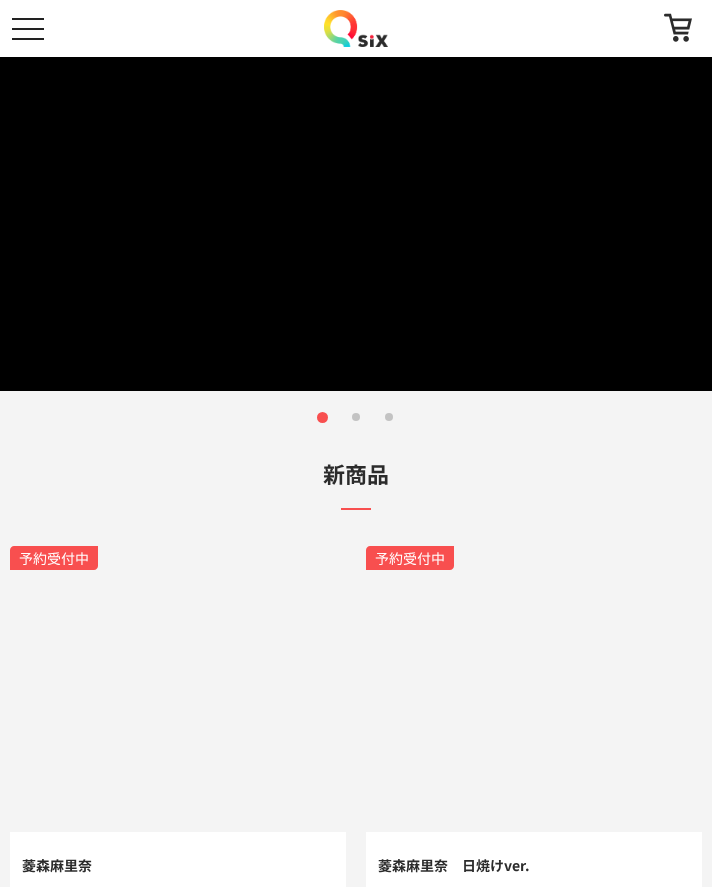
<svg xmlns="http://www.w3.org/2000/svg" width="712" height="887">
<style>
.a{font:bold 22px Noto Sans JP;fill:#2b2b2b}
.b{font:14px Noto Sans JP;fill:#fff}
.c{font:bold 14px Noto Sans JP;fill:#2b2b2b}
</style>
<rect width="100%" height="100%" fill="#f4f4f4"/>
<path fill="#fff" d="M0 0h712v57H0z"/>
<image href="1.png" x="324" y="10" width="64" height="37"/>
<image href="2.png" x="664" y="13" width="28" height="29"/>
<path fill="#222" d="M12 28h32v2H12z"/>
<path fill="#222" d="M12 18h32v2H12z"/>
<path fill="#222" d="M12 38h32v2H12z"/>
<path fill="#000" d="M0 57h712v334H0z"/>
<circle fill="#f84f4f" cx="322.5" cy="417.5" r="5.5"/>
<circle fill="#c3c3c3" cx="356" cy="417" r="4"/>
<circle fill="#c3c3c3" cx="389" cy="417" r="4"/>
<path fill="#f84f4f" d="M341 508h30v2H341z"/>
<path fill="#f84f4f" d="M14 546h84v20c0 2-2 4-4 4h-84v-20c0-2 2-4 4-4z"/>
<path fill="#fff" d="M10 832h336v55H10z"/>
<path fill="#f84f4f" d="M370 546h84v20c0 2-2 4-4 4h-84v-20c0-2 2-4 4-4z"/>
<path fill="#fff" d="M366 832h336v55H366z"/>
<text class="a" x="323" y="483">新商品</text>
<text class="b" x="19" y="564">予約受付中</text>
<text class="c" x="22" y="871">菱森麻里奈</text>
<text class="b" x="375" y="564">予約受付中</text>
<text class="c" x="378" y="871">菱森麻里奈　日焼けver.</text>
</svg>
